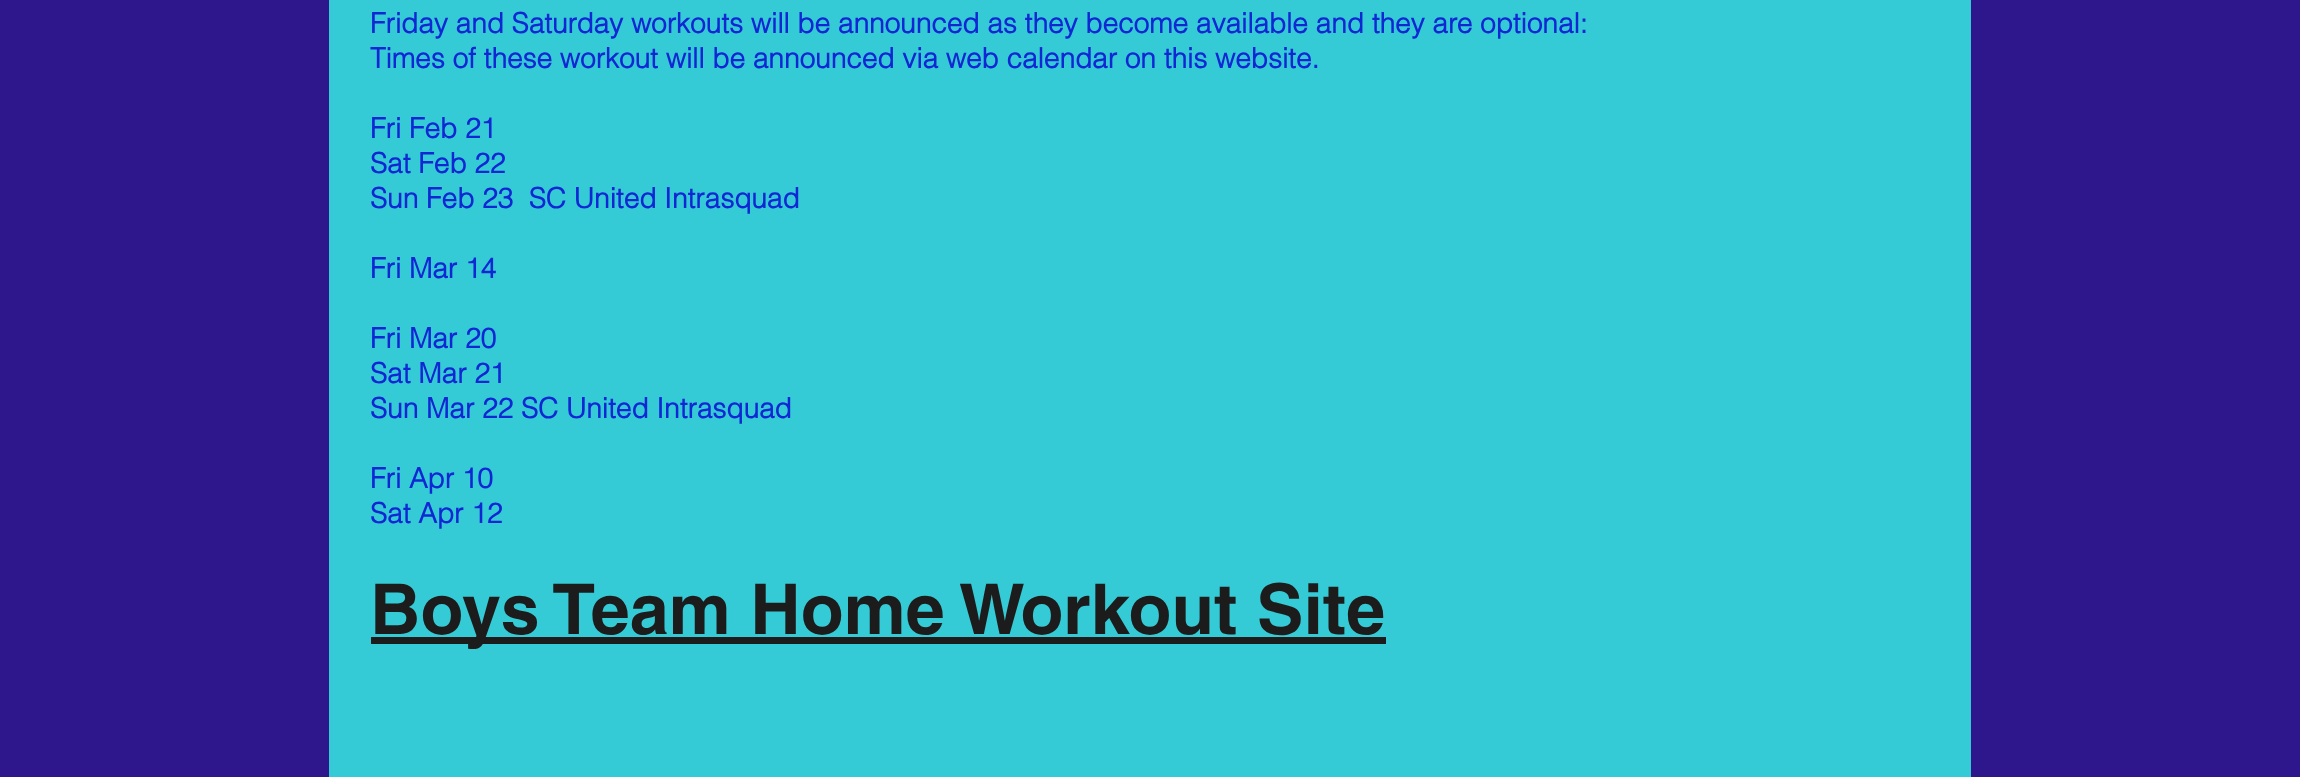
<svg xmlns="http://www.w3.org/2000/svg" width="2300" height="777">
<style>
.a{font:bold 28px helvetica;fill:#1227d4}
.b{font:bold 70px 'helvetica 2';fill:#1c1c1c}
</style>
<rect width="100%" height="100%" fill="#2e168c"/>
<path fill="#35cbd6" d="M329 0h1642v777H329z"/>
<path fill="#1c1c1c" d="M371 637h1015v7H371z"/>
<text class="a" x="370" y="33">Friday and Saturday workouts will be announced as they become available and they are optional:</text>
<text class="a" x="370" y="68">Times of these workout will be announced via web calendar on this website.</text>
<text class="a" x="370" y="138">Fri Feb 21</text>
<text class="a" x="370" y="173">Sat Feb 22</text>
<text class="a" xml:space="preserve" x="370" y="208">Sun Feb 23  SC United Intrasquad</text>
<text class="a" x="370" y="278">Fri Mar 14</text>
<text class="a" x="370" y="348">Fri Mar 20</text>
<text class="a" x="370" y="383">Sat Mar 21</text>
<text class="a" x="370" y="418">Sun Mar 22 SC United Intrasquad</text>
<text class="a" x="370" y="488">Fri Apr 10</text>
<text class="a" x="370" y="523">Sat Apr 12</text>
<text class="b" x="370" y="634">Boys Team Home Workout Site</text>
</svg>
